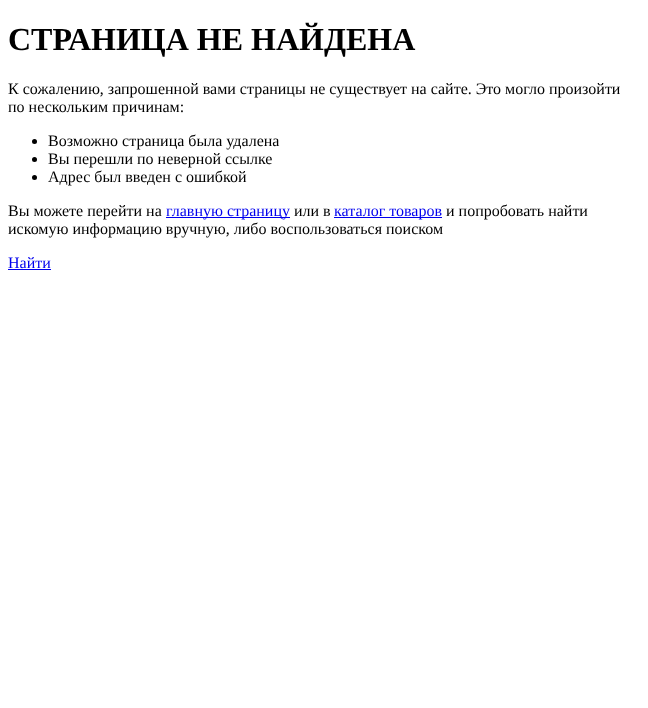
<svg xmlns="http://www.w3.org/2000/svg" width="648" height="708">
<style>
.a{font:bold 32px Liberation Serif;fill:#000}
.b{font:16px Liberation Serif;fill:#000}
.c{font:16px Liberation Serif;fill:#00e}
</style>
<rect width="100%" height="100%" fill="#fff"/>
<circle fill="#000" cx="34.5" cy="141.5" r="2.5"/>
<circle fill="#000" cx="34.5" cy="159.5" r="2.5"/>
<circle fill="#000" cx="34.5" cy="177.5" r="2.5"/>
<path fill="#00e" d="M166 217h124v1H166z"/>
<path fill="#00e" d="M334 217h108v1H334z"/>
<path fill="#00e" d="M8 269h43v1H8z"/>
<text class="a" x="8" y="50">СТРАНИЦА НЕ НАЙДЕНА</text>
<text class="b" x="8" y="94">К сожалению, запрошенной вами страницы не существует на сайте. Это могло произойти</text>
<text class="b" x="8" y="112">по нескольким причинам:</text>
<text class="b" x="48" y="146">Возможно страница была удалена</text>
<text class="b" x="48" y="164">Вы перешли по неверной ссылке</text>
<text class="b" x="48" y="182">Адрес был введен c ошибкой</text>
<text class="b" x="8" y="216">Вы можете перейти на</text>
<text class="c" x="166" y="216">главную страницу</text>
<text class="b" x="294" y="216">или в</text>
<text class="c" x="334" y="216">каталог товаров</text>
<text class="b" x="446" y="216">и попробовать найти</text>
<text class="b" x="8" y="234">искомую информацию вручную, либо воспользоваться поиском</text>
<text class="c" x="8" y="268">Найти</text>
</svg>
